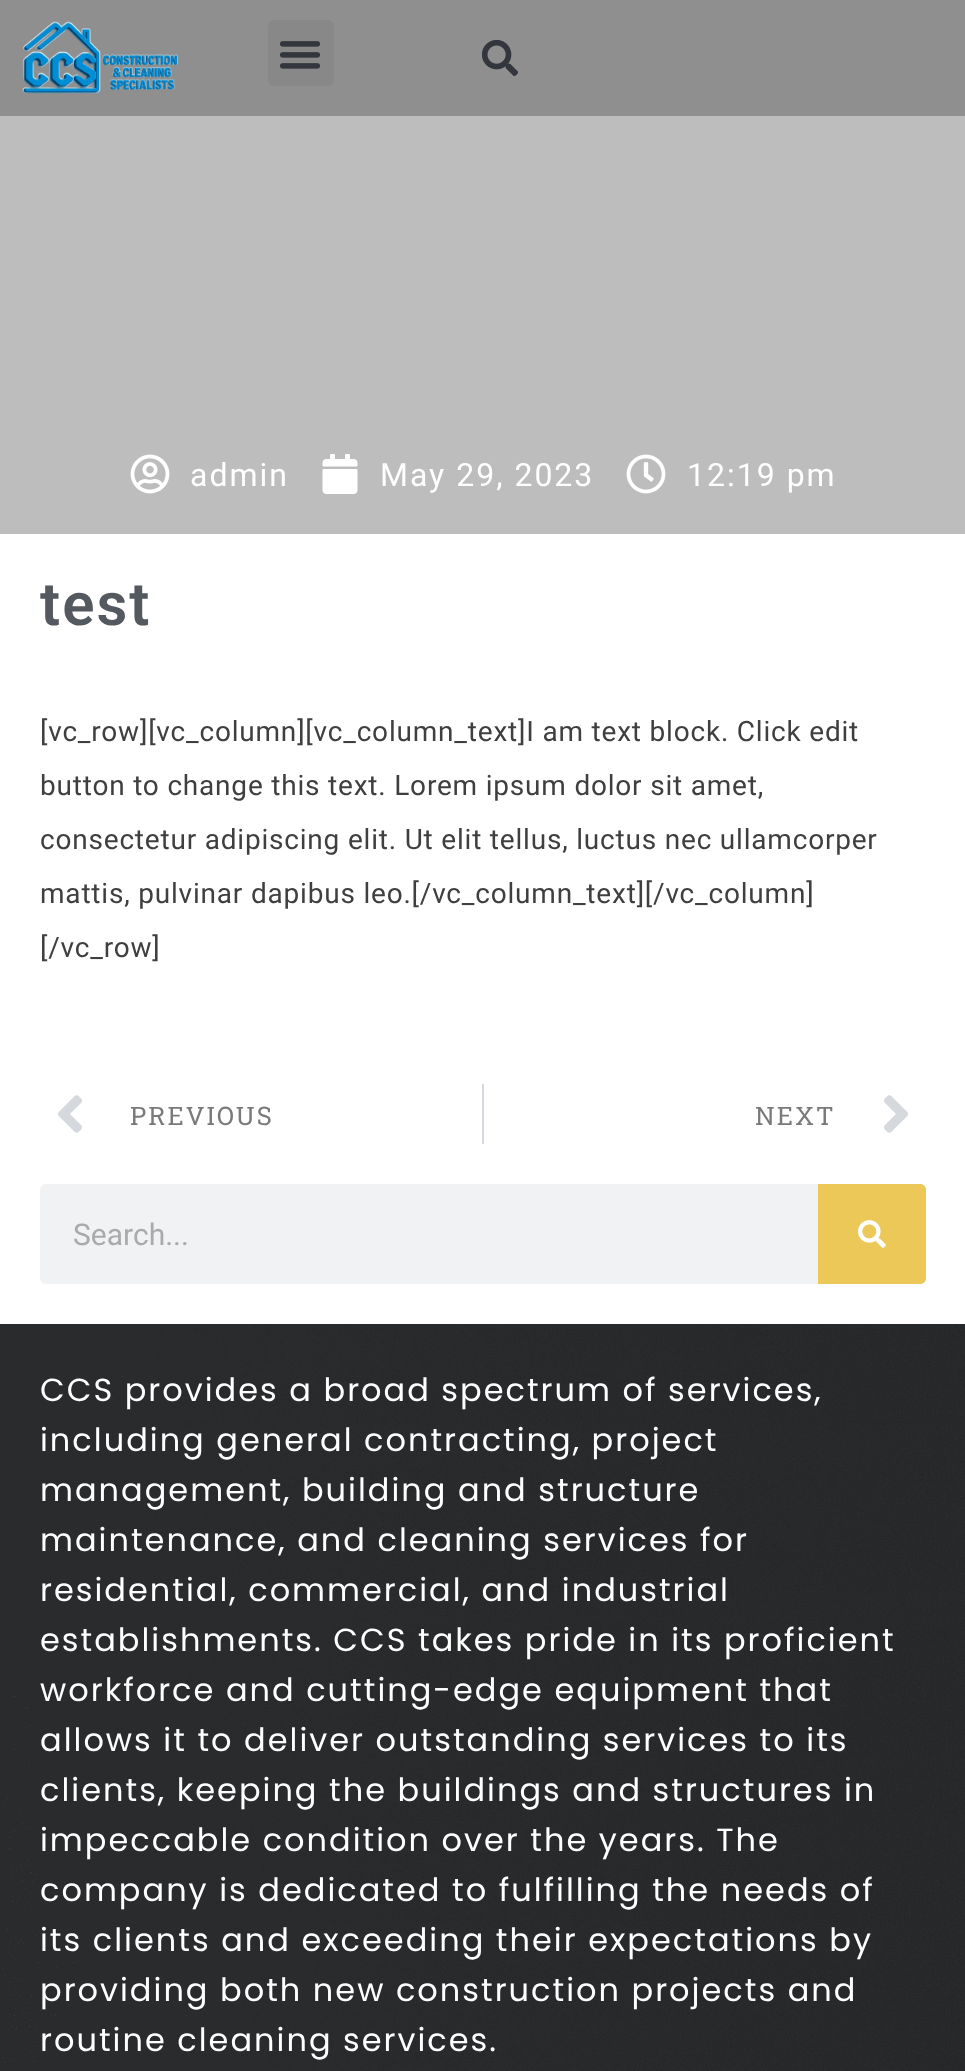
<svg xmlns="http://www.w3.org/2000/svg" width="965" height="2071">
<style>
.a{font:32px Roboto;letter-spacing:2px;fill:#fff}
.b{font:600 60px Roboto;letter-spacing:2px;fill:#54595f}
.c{font:28px Roboto;letter-spacing:0.8px;fill:#3f3f3f}
.d{font:25.5px Roboto Slab;letter-spacing:2px;fill:#7a7a7a}
.e{font:30px Roboto;fill:#aaa}
.f{font:32px Poppins;letter-spacing:2px;fill:#fff}
</style>
<rect width="100%" height="100%" fill="#fff"/>
<path fill="#8f8f8f" d="M0 0h965v116H0z"/>
<image href="1.png" x="22" y="21" width="156" height="73"/>
<rect fill="#888" x="268" y="20" width="66" height="66" rx="6"/>
<image href="2.png" x="279" y="41" width="42" height="28"/>
<image href="3.png" x="482" y="40" width="36" height="36"/>
<path fill="#bdbdbd" d="M0 116h965v418H0z"/>
<image href="4.png" x="130" y="454" width="40" height="40"/>
<image href="5.png" x="322" y="454" width="36" height="40"/>
<image href="6.png" x="626" y="454" width="40" height="40"/>
<image href="7.png" x="58" y="1095" width="24" height="38"/>
<path fill="#d5d8dc" d="M482 1084h2v60H482z"/>
<image href="8.png" x="884" y="1095" width="24" height="38"/>
<rect fill="#f1f2f3" x="40" y="1184" width="886" height="100" rx="6"/>
<path fill="#ebc858" d="M818 1184h102c3.5 0 6 2.5 6 6v88c0 3.5-2.5 6-6 6h-102z"/>
<image href="9.png" x="858" y="1220" width="28" height="28"/>
<image href="10.png" x="0" y="1324" width="965" height="747"/>
<text class="a" x="190" y="486">admin</text>
<text class="a" x="380" y="486">May 29, 2023</text>
<text class="a" x="687" y="486">12:19 pm</text>
<text class="b" x="40" y="625">test</text>
<text class="c" x="40" y="741">[vc_row][vc_column][vc_column_text]I am text block. Click edit</text>
<text class="c" x="40" y="795">button to change this text. Lorem ipsum dolor sit amet,</text>
<text class="c" x="40" y="849">consectetur adipiscing elit. Ut elit tellus, luctus nec ullamcorper</text>
<text class="c" x="40" y="903">mattis, pulvinar dapibus leo.[/vc_column_text][/vc_column]</text>
<text class="c" x="40" y="957">[/vc_row]</text>
<text class="d" x="130" y="1125">PREVIOUS</text>
<text class="d" x="755" y="1125">NEXT</text>
<text class="e" x="73" y="1245">Search...</text>
<text class="f" x="40" y="1401">CCS provides a broad spectrum of services,</text>
<text class="f" x="40" y="1451">including general contracting, project</text>
<text class="f" x="40" y="1501">management, building and structure</text>
<text class="f" x="40" y="1551">maintenance, and cleaning services for</text>
<text class="f" x="40" y="1601">residential, commercial, and industrial</text>
<text class="f" x="40" y="1651">establishments. CCS takes pride in its proficient</text>
<text class="f" x="40" y="1701">workforce and cutting-edge equipment that</text>
<text class="f" x="40" y="1751">allows it to deliver outstanding services to its</text>
<text class="f" x="40" y="1801">clients, keeping the buildings and structures in</text>
<text class="f" x="40" y="1851">impeccable condition over the years. The</text>
<text class="f" x="40" y="1901">company is dedicated to fulfilling the needs of</text>
<text class="f" x="40" y="1951">its clients and exceeding their expectations by</text>
<text class="f" x="40" y="2001">providing both new construction projects and</text>
<text class="f" x="40" y="2051">routine cleaning services.</text>
</svg>
